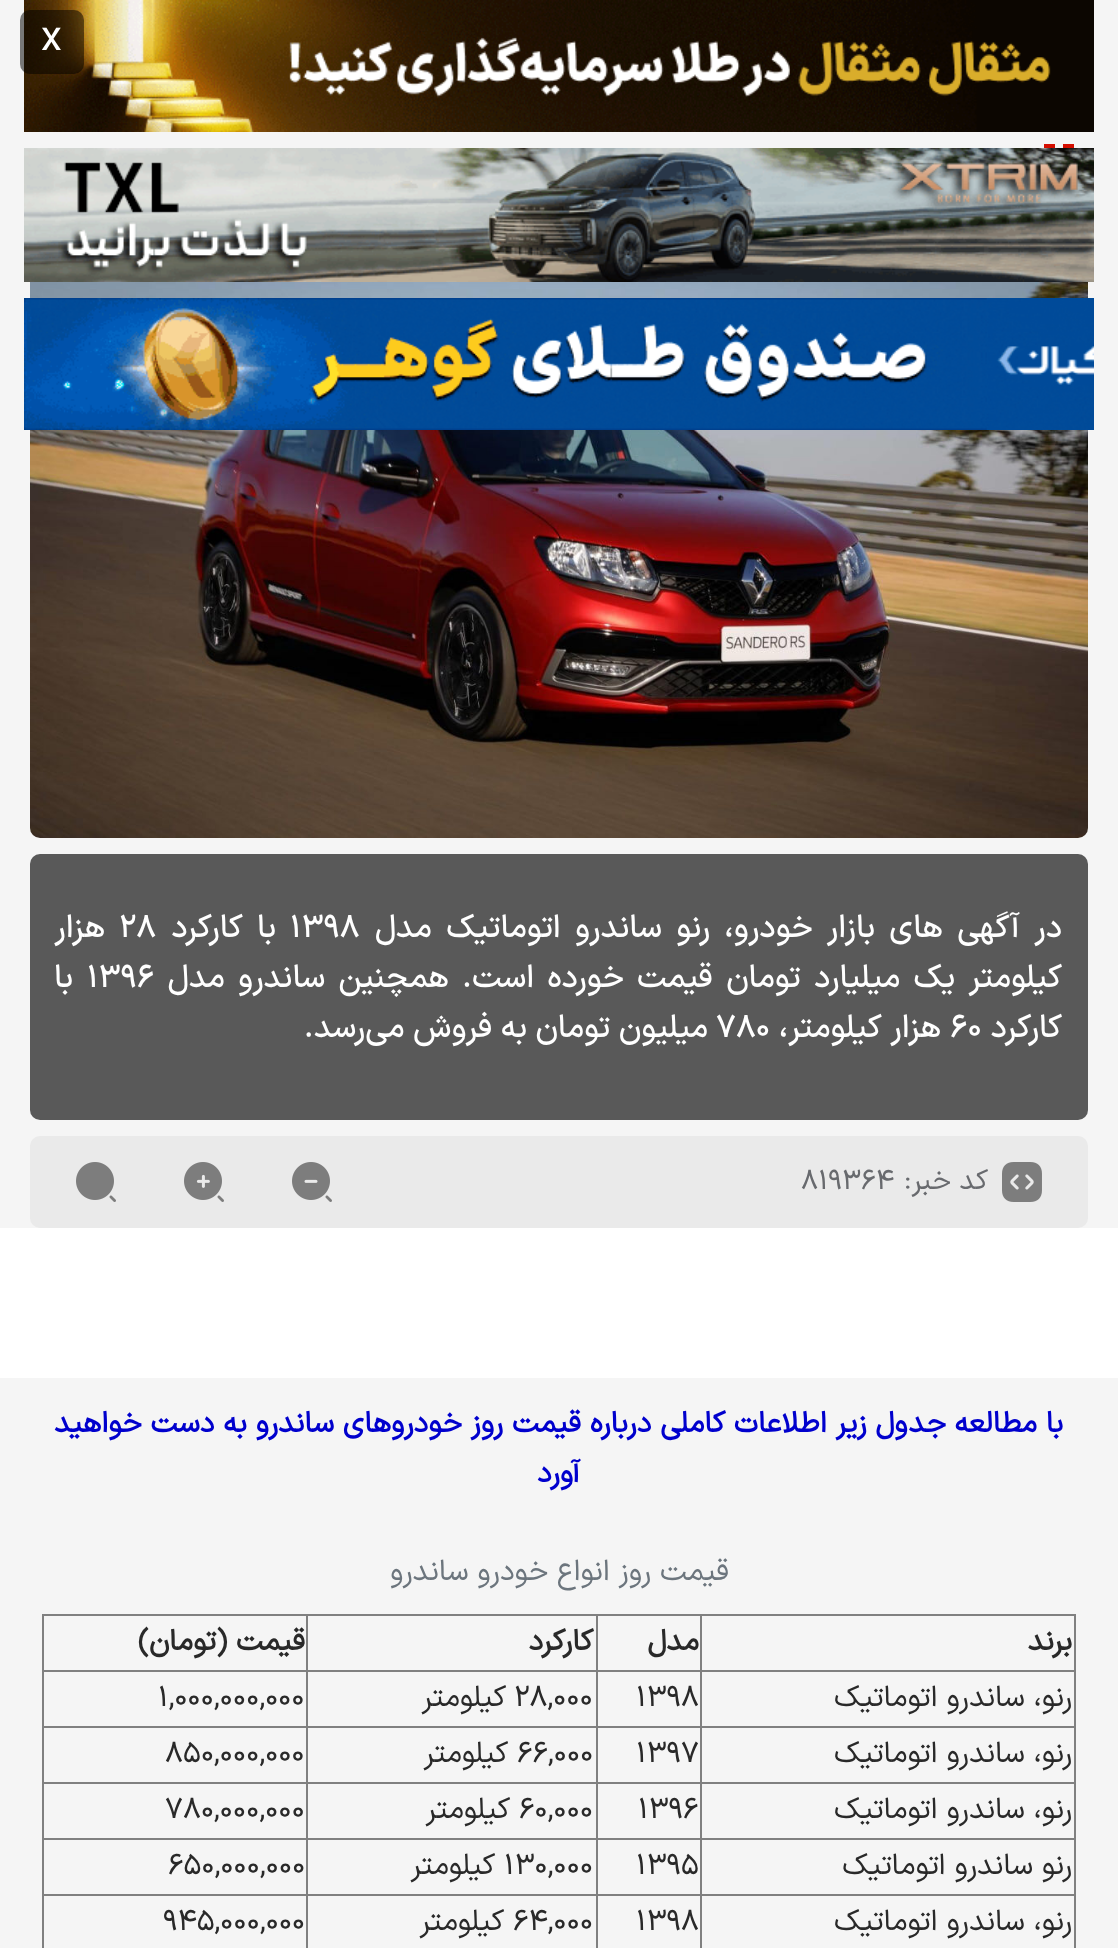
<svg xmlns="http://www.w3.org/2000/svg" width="1118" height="1948">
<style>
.a{font:42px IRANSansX;fill:#fff}
.b{font:500 32px IRANSansX;direction:rtl;fill:#fff}
.c{font:500 32px IRANSansX;fill:#fff}
.d{font:28px IRANSansX;direction:rtl;fill:#686a6e}
.e{font:28px IRANSansX;fill:#686a6e}
.f{font:bold 29.35px IRANSansX;direction:rtl;fill:#0000cd}
.g{font:29.35px IRANSansX;direction:rtl;fill:#6c757d}
.h{font:bold 29.35px IRANSansX;direction:rtl;fill:#292929}
.i{font:29.35px IRANSansX;direction:rtl;fill:#292929}
.j{font:29.35px IRANSansX;fill:#292929}
</style>
<rect width="100%" height="100%" fill="#fff"/>
<path fill="#f5f5f5" d="M0 0h1118v1228H0z"/>
<image href="1.png" x="24" y="0" width="1070" height="132"/>
<path fill="#d40e00" d="M1055 198l-11 6v-60h11zm19-22l-11 5v-37h11z"/>
<image href="2.png" x="24" y="148" width="1070" height="134"/>
<image href="4.png" x="30" y="282" width="1058" height="556"/>
<image href="3.png" x="24" y="298" width="1070" height="132"/>
<rect fill="#00000082" x="20" y="10" width="64" height="64" rx="10"/>
<rect fill="#595959" x="30" y="854" width="1058" height="266" rx="10"/>
<rect fill="#eaeaea" x="30" y="1136" width="1058" height="92" rx="10"/>
<image href="5.png" x="1002" y="1162" width="40" height="40"/>
<image href="6.png" x="292" y="1162" width="40" height="40"/>
<image href="7.png" x="184" y="1162" width="40" height="40"/>
<image href="8.png" x="76" y="1162" width="40" height="40"/>
<path fill="#f5f5f5" d="M0 1378h1118v570H0z"/>
<path fill="#808080" d="M42 1614h1034v2H42z"/>
<path fill="#808080" d="M42 1670h1034v2H42z"/>
<path fill="#808080" d="M1074 1670h2v278H1074z"/>
<path fill="#808080" d="M1074 1614h2v58H1074z"/>
<path fill="#808080" d="M42 1670h2v278H42z"/>
<path fill="#808080" d="M42 1614h2v58H42z"/>
<path fill="#808080" d="M42 1726h1034v2H42z"/>
<path fill="#808080" d="M42 1782h1034v2H42z"/>
<path fill="#808080" d="M42 1838h1034v2H42z"/>
<path fill="#808080" d="M42 1894h1034v2H42z"/>
<path fill="#808080" d="M700 1614h2v334H700z"/>
<path fill="#808080" d="M596 1614h2v334H596z"/>
<path fill="#808080" d="M306 1614h2v334H306z"/>
<text class="a" x="41" y="50">x</text>
<text class="b" x="1062" y="937" word-spacing="5.75">در آگهی های بازار خودرو، رنو ساندرو اتوماتیک مدل</text>
<text class="c" x="290" y="937">۱۳۹۸</text>
<text class="b" x="276" y="937" word-spacing="5.75">با کارکرد</text>
<text class="c" x="119" y="937">۲۸</text>
<text class="b" x="105" y="937">هزار</text>
<text class="b" x="1062" y="987" word-spacing="4.75">کیلومتر یک میلیارد تومان قیمت خورده است. همچنین ساندرو مدل</text>
<text class="c" x="87" y="987">۱۳۹۶</text>
<text class="b" x="73" y="987">با</text>
<text class="b" x="1062" y="1037">کارکرد</text>
<text class="c" x="950" y="1037">۶۰</text>
<text class="b" x="941" y="1037">هزار کیلومتر،</text>
<text class="c" x="716" y="1037">۷۸۰</text>
<text class="b" x="708" y="1037">میلیون تومان به فروش می‌رسد.</text>
<text class="d" x="988" y="1189">کد خبر:</text>
<text class="e" x="801" y="1189">۸۱۹۳۶۴</text>
<text class="f" x="1063" y="1432">با مطالعه جدول زیر اطلاعات کاملی درباره قیمت روز خودروهای ساندرو به دست خواهید</text>
<text class="f" x="580" y="1482">آورد</text>
<text class="g" x="729" y="1580">قیمت روز انواع خودرو ساندرو</text>
<text class="h" x="1072" y="1650">برند</text>
<text class="h" x="699" y="1650">مدل</text>
<text class="h" x="593" y="1650">کارکرد</text>
<text class="h" x="305" y="1650">قیمت (تومان)</text>
<text class="i" x="1072" y="1706">رنو، ساندرو اتوماتیک</text>
<text class="j" x="636" y="1706">۱۳۹۸</text>
<text class="j" x="514" y="1706">۲۸,۰۰۰</text>
<text class="i" x="506" y="1706">کیلومتر</text>
<text class="j" x="158" y="1706">۱,۰۰۰,۰۰۰,۰۰۰</text>
<text class="i" x="1072" y="1762">رنو، ساندرو اتوماتیک</text>
<text class="j" x="636" y="1762">۱۳۹۷</text>
<text class="j" x="517" y="1762">۶۶,۰۰۰</text>
<text class="i" x="508" y="1762">کیلومتر</text>
<text class="j" x="165" y="1762">۸۵۰,۰۰۰,۰۰۰</text>
<text class="i" x="1072" y="1818">رنو، ساندرو اتوماتیک</text>
<text class="j" x="638" y="1818">۱۳۹۶</text>
<text class="j" x="519" y="1818">۶۰,۰۰۰</text>
<text class="i" x="510" y="1818">کیلومتر</text>
<text class="j" x="165" y="1818">۷۸۰,۰۰۰,۰۰۰</text>
<text class="i" x="1072" y="1874">رنو ساندرو اتوماتیک</text>
<text class="j" x="636" y="1874">۱۳۹۵</text>
<text class="j" x="504" y="1874">۱۳۰,۰۰۰</text>
<text class="i" x="495" y="1874">کیلومتر</text>
<text class="j" x="168" y="1874">۶۵۰,۰۰۰,۰۰۰</text>
<text class="i" x="1072" y="1930">رنو، ساندرو اتوماتیک</text>
<text class="j" x="636" y="1930">۱۳۹۸</text>
<text class="j" x="513" y="1930">۶۴,۰۰۰</text>
<text class="i" x="504" y="1930">کیلومتر</text>
<text class="j" x="163" y="1930">۹۴۵,۰۰۰,۰۰۰</text>
</svg>
